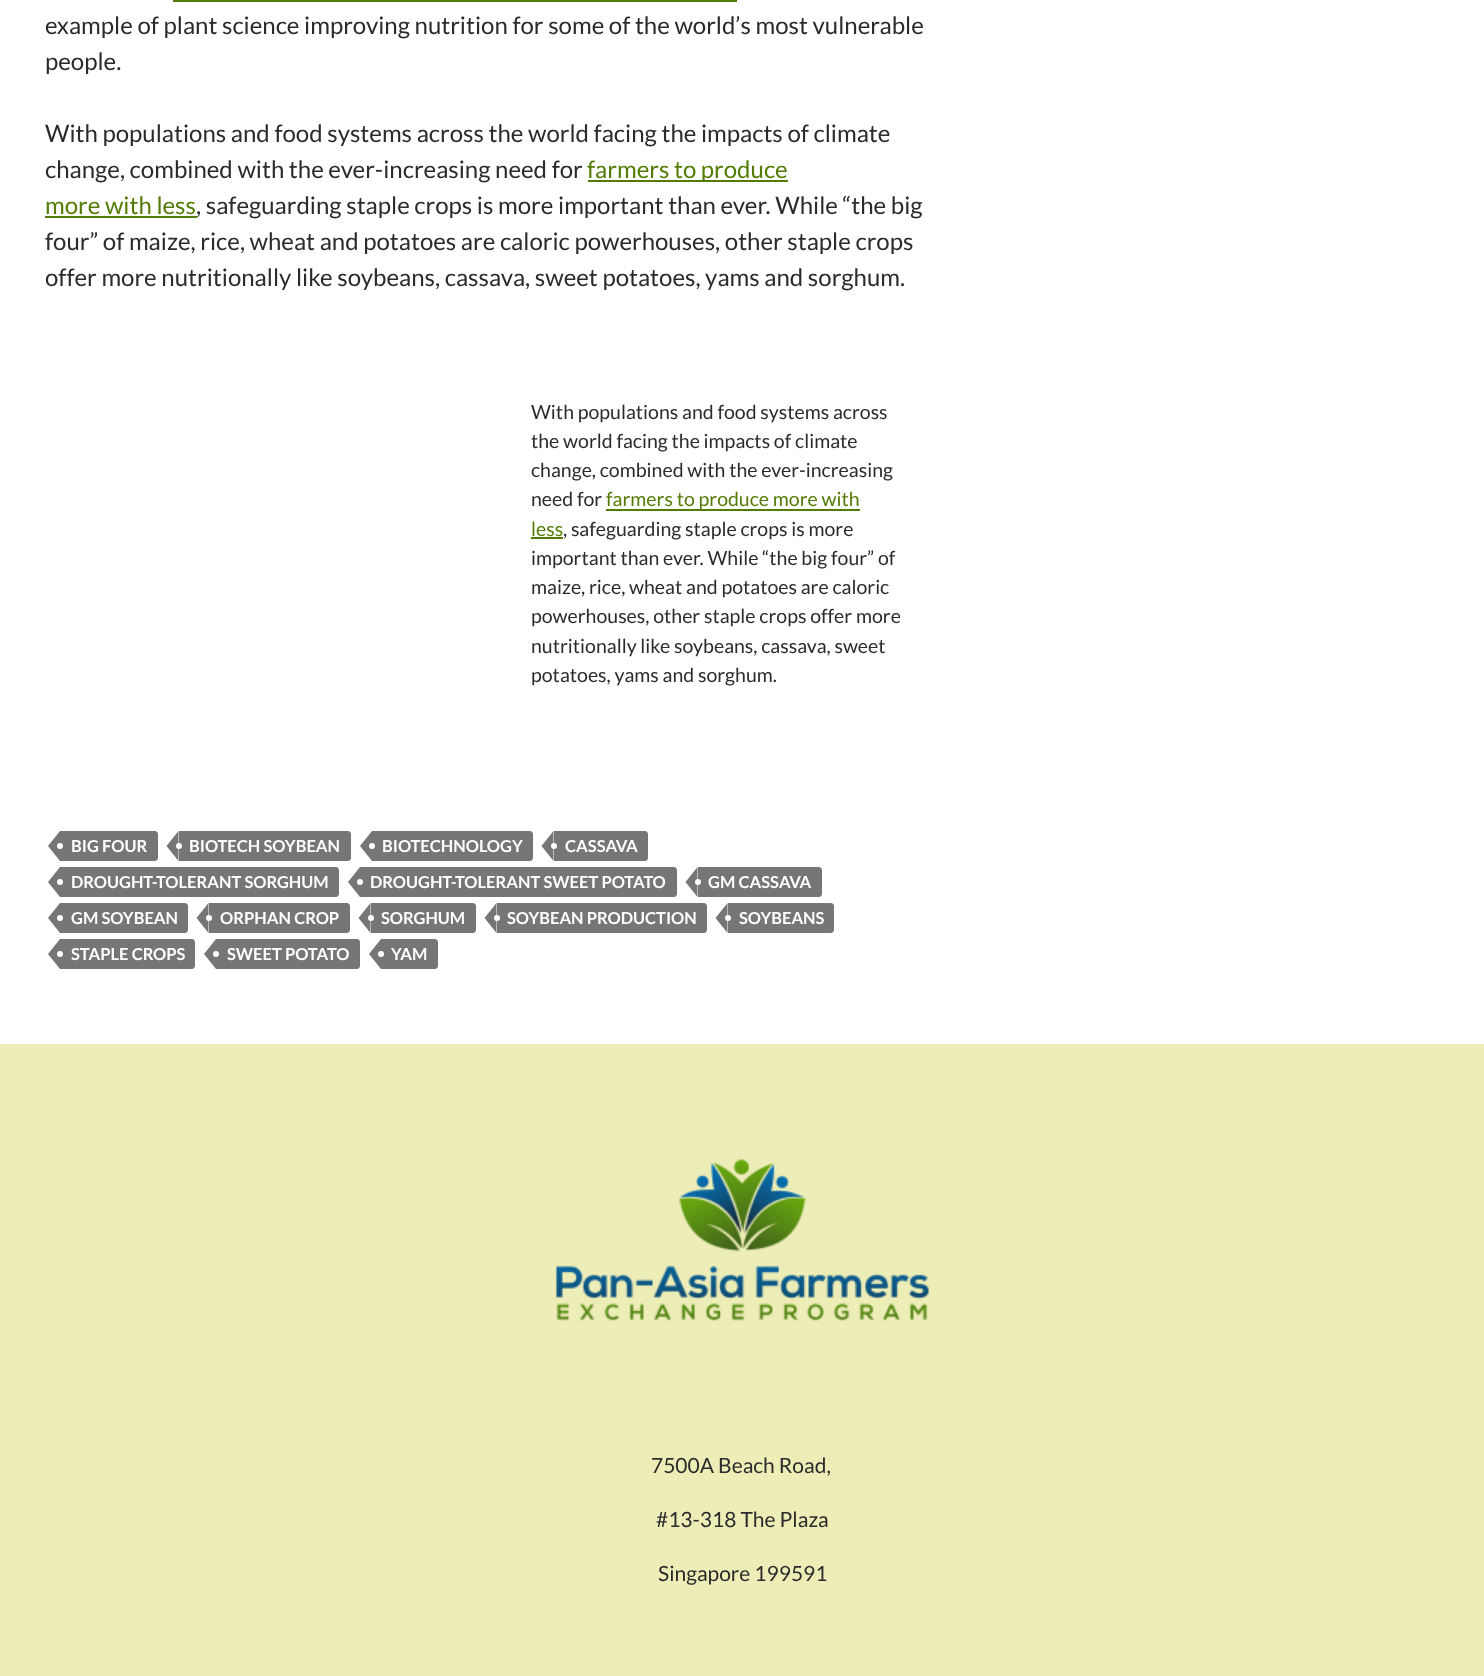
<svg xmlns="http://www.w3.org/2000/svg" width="1484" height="1676">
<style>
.a{font:24px Lato;fill:#2b2b2b}
.b{font:24px Lato;fill:#527c03}
.c{font:19.5px Lato;fill:#2b2b2b}
.d{font:19.5px Lato;fill:#527c03}
.e{font:bold 16.5px Lato;fill:#fff}
.f{font:21px Lato;fill:#2b2b2b}
</style>
<rect width="100%" height="100%" fill="#fff"/>
<path fill="#527c03" d="M173 0h564v2H173z"/>
<path fill="#527c03" d="M588 180h200v2H588z"/>
<path fill="#527c03" d="M45 216h152v2H45z"/>
<path fill="#527c03" d="M606 509h254v2H606z"/>
<path fill="#527c03" d="M531 537h32v2H531z"/>
<path fill="#767676" d="M60 831h95c1.5 0 3 1.5 3 3v24c0 1.5-1.5 3-3 3h-95z"/>
<path fill="#767676" d="M60 831v30l-12-15z"/>
<circle fill="#fff" cx="60" cy="846" r="3"/>
<path fill="#767676" d="M179 831h169c1.5 0 3 1.5 3 3v24c0 1.5-1.5 3-3 3h-169z"/>
<path fill="#767676" d="M178.5 831v30l-12-15z"/>
<circle fill="#fff" cx="179" cy="846" r="3"/>
<path fill="#767676" d="M372 831h158c1.5 0 3 1.5 3 3v24c0 1.5-1.5 3-3 3h-158z"/>
<path fill="#767676" d="M372 831v30l-12-15z"/>
<circle fill="#fff" cx="372" cy="846" r="3"/>
<path fill="#767676" d="M554 831h91c1.5 0 3 1.5 3 3v24c0 1.5-1.5 3-3 3h-91z"/>
<path fill="#767676" d="M553.5 831v30l-12-15z"/>
<circle fill="#fff" cx="554" cy="846" r="3"/>
<path fill="#767676" d="M60 867h276c1.5 0 3 1.5 3 3v24c0 1.5-1.5 3-3 3h-276z"/>
<path fill="#767676" d="M60 867v30l-12-15z"/>
<circle fill="#fff" cx="60" cy="882" r="3"/>
<path fill="#767676" d="M360 867h314c1.5 0 3 1.5 3 3v24c0 1.5-1.5 3-3 3h-314z"/>
<path fill="#767676" d="M360 867v30l-12-15z"/>
<circle fill="#fff" cx="360" cy="882" r="3"/>
<path fill="#767676" d="M698 867h121c1.5 0 3 1.5 3 3v24c0 1.5-1.5 3-3 3h-121z"/>
<path fill="#767676" d="M697.5 867v30l-12-15z"/>
<circle fill="#fff" cx="698" cy="882" r="3"/>
<path fill="#767676" d="M60 903h125c1.5 0 3 1.5 3 3v24c0 1.5-1.5 3-3 3h-125z"/>
<path fill="#767676" d="M60 903v30l-12-15z"/>
<circle fill="#fff" cx="60" cy="918" r="3"/>
<path fill="#767676" d="M209 903h138c1.5 0 3 1.5 3 3v24c0 1.5-1.5 3-3 3h-138z"/>
<path fill="#767676" d="M208.5 903v30l-12-15z"/>
<circle fill="#fff" cx="209" cy="918" r="3"/>
<path fill="#767676" d="M371 903h102c1.5 0 3 1.5 3 3v24c0 1.5-1.5 3-3 3h-102z"/>
<path fill="#767676" d="M370.5 903v30l-12-15z"/>
<circle fill="#fff" cx="371" cy="918" r="3"/>
<path fill="#767676" d="M497 903h207c1.5 0 3 1.5 3 3v24c0 1.5-1.5 3-3 3h-207z"/>
<path fill="#767676" d="M496.5 903v30l-12-15z"/>
<circle fill="#fff" cx="497" cy="918" r="3"/>
<path fill="#767676" d="M728 903h103c1.5 0 3 1.5 3 3v24c0 1.5-1.5 3-3 3h-103z"/>
<path fill="#767676" d="M727.5 903v30l-12-15z"/>
<circle fill="#fff" cx="728" cy="918" r="3"/>
<path fill="#767676" d="M60 939h132c1.5 0 3 1.5 3 3v24c0 1.5-1.5 3-3 3h-132z"/>
<path fill="#767676" d="M60 939v30l-12-15z"/>
<circle fill="#fff" cx="60" cy="954" r="3"/>
<path fill="#767676" d="M216 939h141c1.5 0 3 1.5 3 3v24c0 1.5-1.5 3-3 3h-141z"/>
<path fill="#767676" d="M216 939v30l-12-15z"/>
<circle fill="#fff" cx="216" cy="954" r="3"/>
<path fill="#767676" d="M381 939h54c1.5 0 3 1.5 3 3v24c0 1.5-1.5 3-3 3h-54z"/>
<path fill="#767676" d="M381 939v30l-12-15z"/>
<circle fill="#fff" cx="381" cy="954" r="3"/>
<path fill="#ededb8" d="M0 1044h1484v632H0z"/>
<image href="1.png" x="555" y="1159" width="375" height="162"/>
<text class="a" x="45" y="34">example of plant science improving nutrition for some of the world’s most vulnerable</text>
<text class="a" x="45" y="70">people.</text>
<text class="a" x="45" y="142">With populations and food systems across the world facing the impacts of climate</text>
<text class="a" x="45" y="178">change, combined with the ever-increasing need for</text>
<text class="b" x="587" y="178">farmers to produce</text>
<text class="b" x="45" y="214">more with less</text>
<text class="a" x="196" y="214">, safeguarding staple crops is more important than ever. While “the big</text>
<text class="a" x="45" y="250">four” of maize, rice, wheat and potatoes are caloric powerhouses, other staple crops</text>
<text class="a" x="45" y="286">offer more nutritionally like soybeans, cassava, sweet potatoes, yams and sorghum.</text>
<text class="c" x="531" y="419">With populations and food systems across</text>
<text class="c" x="531" y="448">the world facing the impacts of climate</text>
<text class="c" x="531" y="477">change, combined with the ever-increasing</text>
<text class="c" x="531" y="506">need for</text>
<text class="d" x="606" y="506">farmers to produce more with</text>
<text class="d" x="531" y="536">less</text>
<text class="c" x="563" y="536">, safeguarding staple crops is more</text>
<text class="c" x="531" y="565">important than ever. While “the big four” of</text>
<text class="c" x="531" y="594">maize, rice, wheat and potatoes are caloric</text>
<text class="c" x="531" y="623">powerhouses, other staple crops offer more</text>
<text class="c" x="531" y="653">nutritionally like soybeans, cassava, sweet</text>
<text class="c" x="531" y="682">potatoes, yams and sorghum.</text>
<text class="e" x="71" y="852">BIG FOUR</text>
<text class="e" x="189" y="852">BIOTECH SOYBEAN</text>
<text class="e" x="382" y="852">BIOTECHNOLOGY</text>
<text class="e" x="565" y="852">CASSAVA</text>
<text class="e" x="71" y="888">DROUGHT-TOLERANT SORGHUM</text>
<text class="e" x="370" y="888">DROUGHT-TOLERANT SWEET POTATO</text>
<text class="e" x="708" y="888">GM CASSAVA</text>
<text class="e" x="71" y="924">GM SOYBEAN</text>
<text class="e" x="220" y="924">ORPHAN CROP</text>
<text class="e" x="381" y="924">SORGHUM</text>
<text class="e" x="507" y="924">SOYBEAN PRODUCTION</text>
<text class="e" x="739" y="924">SOYBEANS</text>
<text class="e" x="71" y="960">STAPLE CROPS</text>
<text class="e" x="227" y="960">SWEET POTATO</text>
<text class="e" x="391" y="960">YAM</text>
<text class="f" x="651" y="1473">7500A Beach Road,</text>
<text class="f" x="656" y="1527">#13-318 The Plaza</text>
<text class="f" x="658" y="1581">Singapore 199591</text>
</svg>
